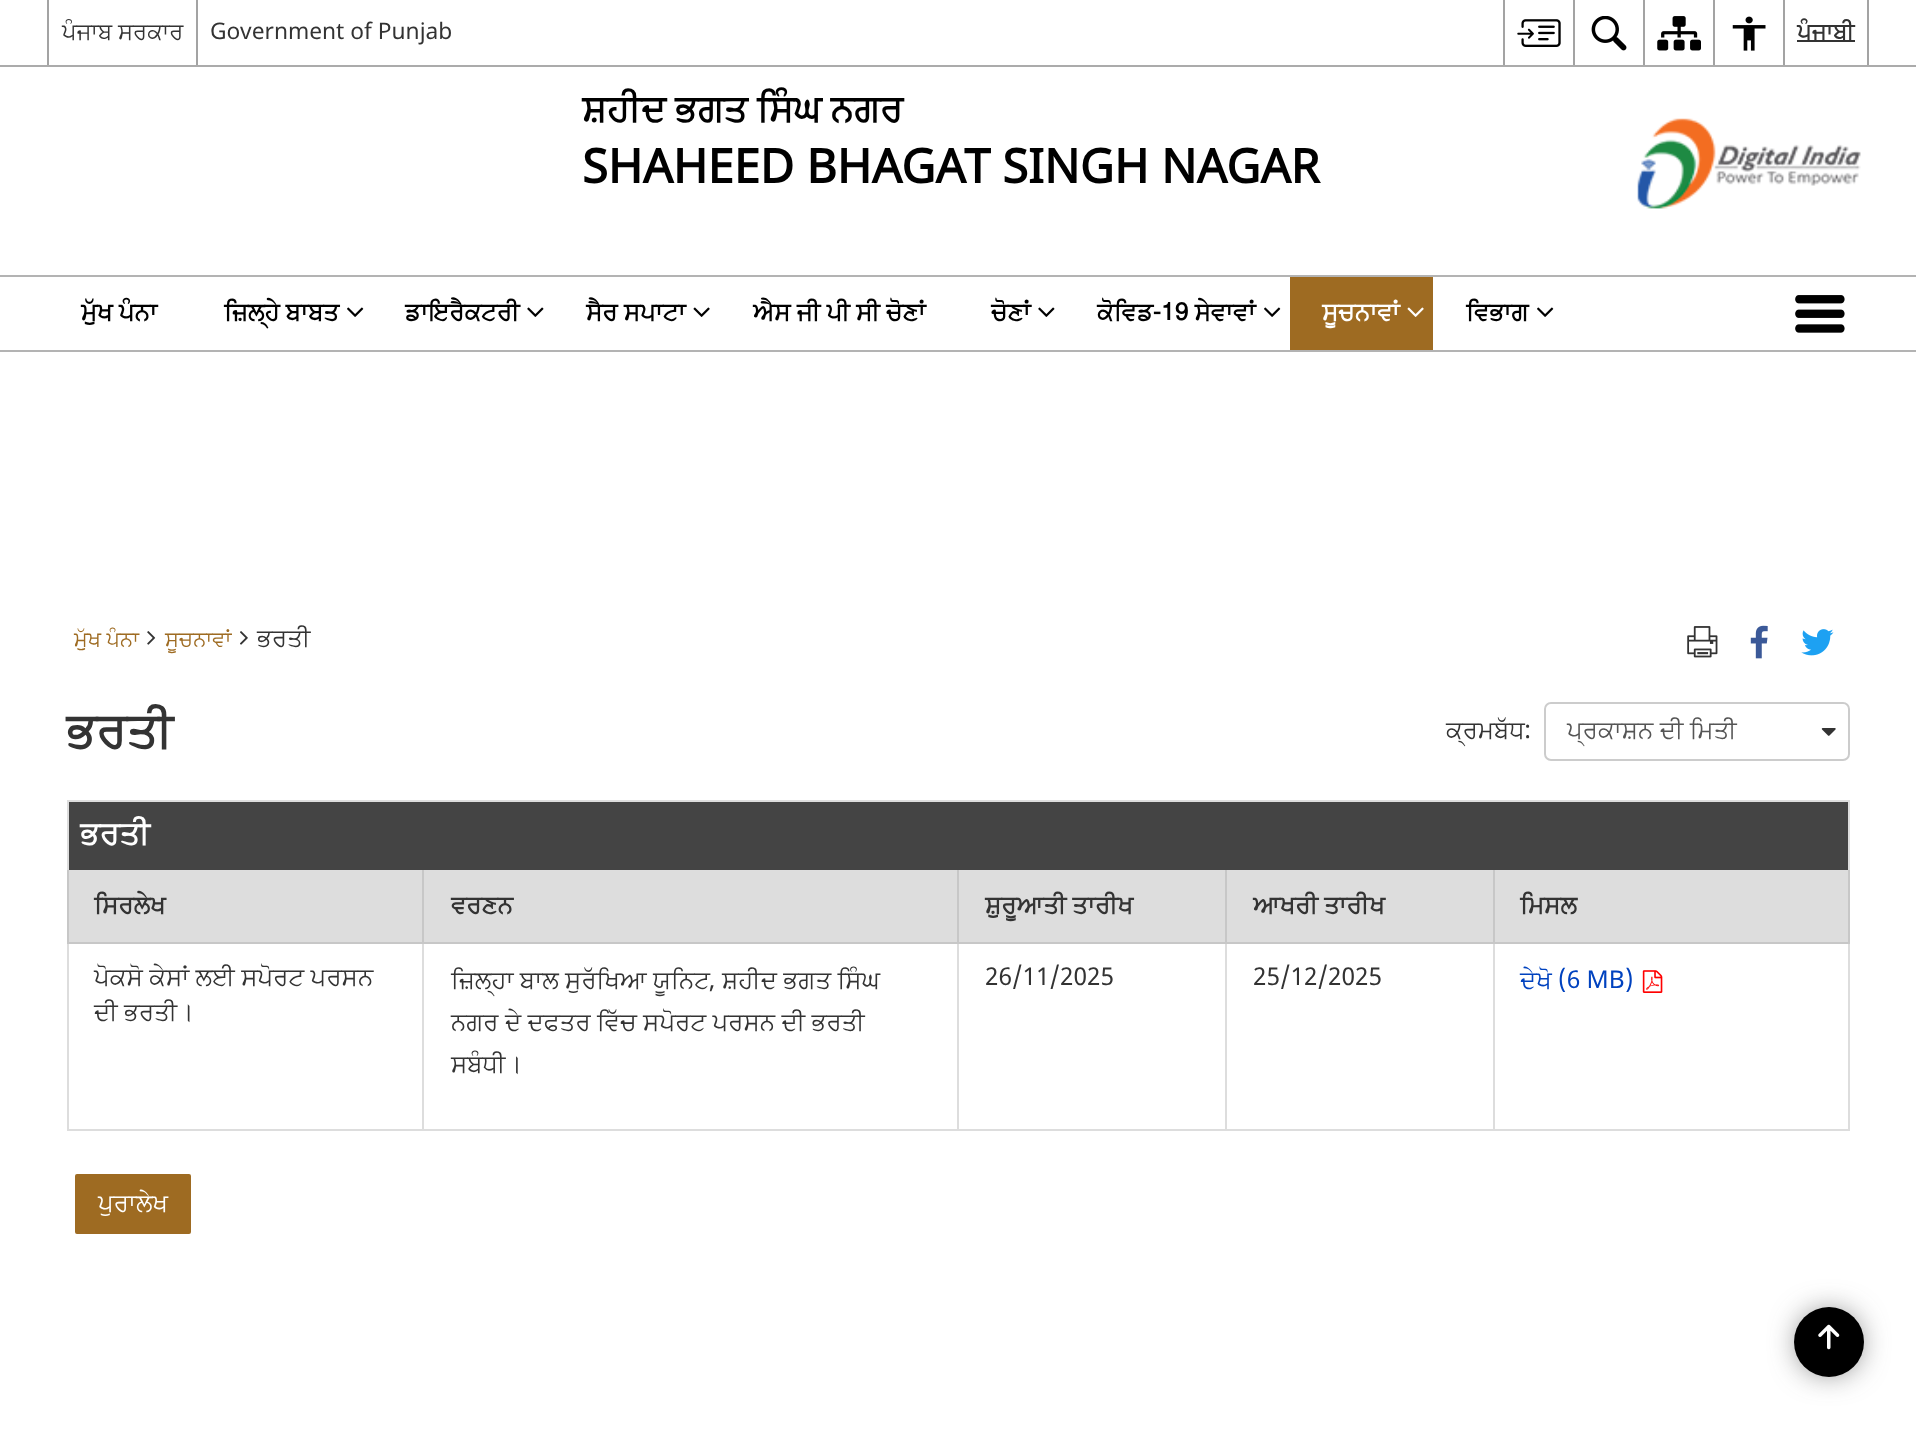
<svg xmlns="http://www.w3.org/2000/svg" width="1916" height="1429">
<style>
.a{font:22.75px FreeSans;fill:#333}
.b{font:22.75px Noto Sans;fill:#333}
.c{font:bold 22.75px FreeSans;fill:#333}
.d{font:bold 37.25px FreeSans;fill:#000}
.e{font:bold 47px Noto Sans;fill:#000}
.f{font:bold 24.5px FreeSans;fill:#000}
.g{font:bold 24.5px FreeSans;fill:#fff}
.h{font:21px FreeSans;fill:#9e6b22}
.i{font:24.5px FreeSans;fill:#333}
.j{font:bold 49px FreeSans;fill:#333}
.k{font:24.5px Noto Sans;fill:#333}
.l{font:24.5px FreeSans;fill:#555}
.m{font:bold 32px FreeSans;fill:#fff}
.n{font:bold 24.5px FreeSans;fill:#333}
.o{font:24.5px FreeSans;fill:#0042bf}
.p{font:24.5px Noto Sans;fill:#0042bf}
.q{font:24.5px FreeSans;fill:#fff}
</style>
<defs>
<clipPath id="clip1"><path d="M1566 714h261v35H1566z"/></clipPath>
</defs>
<rect width="100%" height="100%" fill="#fff"/>
<path fill="#ababab" d="M0 65h1916v2H0z"/>
<path fill="#a3a3a3" d="M47 0h2v65H47z"/>
<path fill="#a3a3a3" d="M196 0h2v65H196z"/>
<path fill="#a3a3a3" d="M1503 0h2v65H1503z"/>
<image href="1.png" x="1517" y="19" width="44" height="28"/>
<path fill="#a3a3a3" d="M1573 0h2v65H1573z"/>
<image href="2.png" x="1591" y="16" width="36" height="35"/>
<path fill="#a3a3a3" d="M1643 0h2v65H1643z"/>
<image href="3.png" x="1657" y="16" width="44" height="35"/>
<path fill="#a3a3a3" d="M1713 0h2v65H1713z"/>
<image href="4.png" x="1732" y="16" width="34" height="35"/>
<path fill="#a3a3a3" d="M1867 0h2v65H1867z"/>
<path fill="#a3a3a3" d="M1783 0h2v65H1783z"/>
<path fill="#333" d="M1797 40h58v2H1797z"/>
<image href="5.png" x="1637" y="118" width="224" height="91"/>
<path fill="#b3b3b3" d="M0 275h1916v2H0z"/>
<path fill="#b3b3b3" d="M0 350h1916v2H0z"/>
<image href="6.png" x="347" y="307" width="17" height="10"/>
<image href="7.png" x="527" y="307" width="17" height="10"/>
<image href="8.png" x="693" y="307" width="17" height="10"/>
<image href="7.png" x="1038" y="307" width="17" height="10"/>
<image href="6.png" x="1264" y="307" width="17" height="10"/>
<path fill="#9e6b22" d="M1290 277h143v73H1290z"/>
<image href="9.png" x="1407" y="307" width="17" height="10"/>
<image href="6.png" x="1537" y="307" width="17" height="10"/>
<image href="10.png" x="1795" y="295" width="50" height="38"/>
<image href="11.png" x="147" y="631" width="9" height="14"/>
<image href="12.png" x="240" y="631" width="8" height="14"/>
<image href="13.png" x="1687" y="626" width="31" height="32"/>
<image href="14.png" x="1750" y="625" width="18" height="34"/>
<image href="15.png" x="1801" y="629" width="33" height="27"/>
<image href="16.png" x="1821" y="728" width="15" height="8"/>
<rect fill="none" stroke="#ccc" stroke-width="2" x="1545" y="703" width="304" height="57" rx="6"/>
<path fill="#ddd" d="M67 800h1783v2H67z"/>
<path fill="#ddd" d="M1848 800h2v331H1848z"/>
<path fill="#ddd" d="M67 1129h1783v2H67z"/>
<path fill="#ddd" d="M67 800h2v331H67z"/>
<path fill="#444" d="M69 802h1779v68H69z"/>
<path fill="#ddd" d="M69 870h353v72H69z"/>
<path fill="#c7c7c7" d="M1848 870h2v73H1848z"/>
<path fill="#ddd" d="M1493 942h2v189H1493z"/>
<path fill="#c7c7c7" d="M1493 942h357v2H1493z"/>
<path fill="#c7c7c7" d="M1493 870h2v73H1493z"/>
<path fill="#ddd" d="M1225 942h2v189H1225z"/>
<path fill="#c7c7c7" d="M1225 942h270v2H1225z"/>
<path fill="#c7c7c7" d="M1225 870h2v73H1225z"/>
<path fill="#ddd" d="M957 942h2v189H957z"/>
<path fill="#c7c7c7" d="M957 942h270v2H957z"/>
<path fill="#c7c7c7" d="M957 870h2v73H957z"/>
<path fill="#ddd" d="M422 942h2v189H422z"/>
<path fill="#c7c7c7" d="M422 942h537v2H422z"/>
<path fill="#c7c7c7" d="M422 870h2v73H422z"/>
<path fill="#c7c7c7" d="M67 942h357v2H67z"/>
<path fill="#c7c7c7" d="M67 870h2v73H67z"/>
<path fill="#ddd" d="M424 870h533v72H424z"/>
<path fill="#ddd" d="M959 870h266v72H959z"/>
<path fill="#ddd" d="M1227 870h266v72H1227z"/>
<path fill="#ddd" d="M1495 870h353v72H1495z"/>
<image href="17.png" x="1642" y="970" width="21" height="23"/>
<rect fill="#9e6b22" stroke="#9e6b22" stroke-width="2" x="76" y="1175" width="114" height="58" rx="1"/>
<rect fill="#3c3c3c" filter="blur(16.5px)" x="1803" y="1316" width="52" height="53" rx="26"/>
<circle fill="#000" cx="1829" cy="1342" r="35"/>
<image href="18.png" x="1818" y="1324" width="22" height="26"/>
<text class="a" x="62" y="39">ਪੰਜਾਬ ਸਰਕਾਰ</text>
<text class="b" x="210" y="39">Government of Punjab</text>
<text class="c" x="1797" y="39">ਪੰਜਾਬੀ</text>
<text class="d" x="582" y="121">ਸ਼ਹੀਦ ਭਗਤ ਸਿੰਘ ਨਗਰ</text>
<text class="e" x="582" y="183">SHAHEED BHAGAT SINGH NAGAR</text>
<text class="f" x="81" y="320">ਮੁੱਖ ਪੰਨਾ</text>
<text class="f" x="224" y="320">ਜ਼ਿਲ੍ਹੇ ਬਾਬਤ</text>
<text class="f" x="405" y="320">ਡਾਇਰੈਕਟਰੀ</text>
<text class="f" x="586" y="320">ਸੈਰ ਸਪਾਟਾ</text>
<text class="f" x="753" y="320" word-spacing="0.25">ਐਸ ਜੀ ਪੀ ਸੀ ਚੋਣਾਂ</text>
<text class="f" x="991" y="320">ਚੋਣਾਂ</text>
<text class="f" x="1097" y="320">ਕੋਵਿਡ-19 ਸੇਵਾਵਾਂ</text>
<text class="g" x="1322" y="320">ਸੂਚਨਾਵਾਂ</text>
<text class="f" x="1466" y="320">ਵਿਭਾਗ</text>
<text class="h" x="74" y="646">ਮੁੱਖ ਪੰਨਾ</text>
<text class="h" x="165" y="646">ਸੂਚਨਾਵਾਂ</text>
<text class="i" x="257" y="646">ਭਰਤੀ</text>
<text class="j" x="66" y="747">ਭਰਤੀ</text>
<text class="i" x="1446" y="738">ਕ੍ਰਮਬੱਧ</text>
<text class="k" x="1524" y="738">:</text>
<g clip-path="url(#clip1)">
<text class="l" x="1567" y="738" word-spacing="0.25">ਪ੍ਰਕਾਸ਼ਨ ਦੀ ਮਿਤੀ</text>
</g>
<text class="m" x="80" y="844">ਭਰਤੀ</text>
<text class="n" x="94" y="913">ਸਿਰਲੇਖ</text>
<text class="n" x="451" y="913">ਵਰਣਨ</text>
<text class="n" x="985" y="913">ਸ਼ੁਰੂਆਤੀ ਤਾਰੀਖ</text>
<text class="n" x="1253" y="913">ਆਖਰੀ ਤਾਰੀਖ</text>
<text class="n" x="1520" y="913">ਮਿਸਲ</text>
<text class="i" x="94" y="985" word-spacing="0.25">ਪੋਕਸੋ ਕੇਸਾਂ ਲਈ ਸਪੋਰਟ ਪਰਸਨ</text>
<text class="i" x="94" y="1020" word-spacing="0.25">ਦੀ ਭਰਤੀ।</text>
<text class="i" x="451" y="988" word-spacing="0.25">ਜ਼ਿਲ੍ਹਾ ਬਾਲ ਸੁਰੱਖਿਆ ਯੂਨਿਟ</text>
<text class="k" x="709" y="988">,</text>
<text class="i" x="722" y="988" word-spacing="0.25">ਸ਼ਹੀਦ ਭਗਤ ਸਿੰਘ</text>
<text class="i" x="451" y="1030" word-spacing="0.25">ਨਗਰ ਦੇ ਦਫਤਰ ਵਿੱਚ ਸਪੋਰਟ ਪਰਸਨ ਦੀ ਭਰਤੀ</text>
<text class="i" x="451" y="1072">ਸਬੰਧੀ।</text>
<text class="k" x="985" y="985">26/11/2025</text>
<text class="k" x="1253" y="985">25/12/2025</text>
<text class="o" x="1520" y="988">ਦੇਖੋ</text>
<text class="p" x="1558" y="988">(6 MB)</text>
<text class="q" x="98" y="1211">ਪੁਰਾਲੇਖ</text>
</svg>
